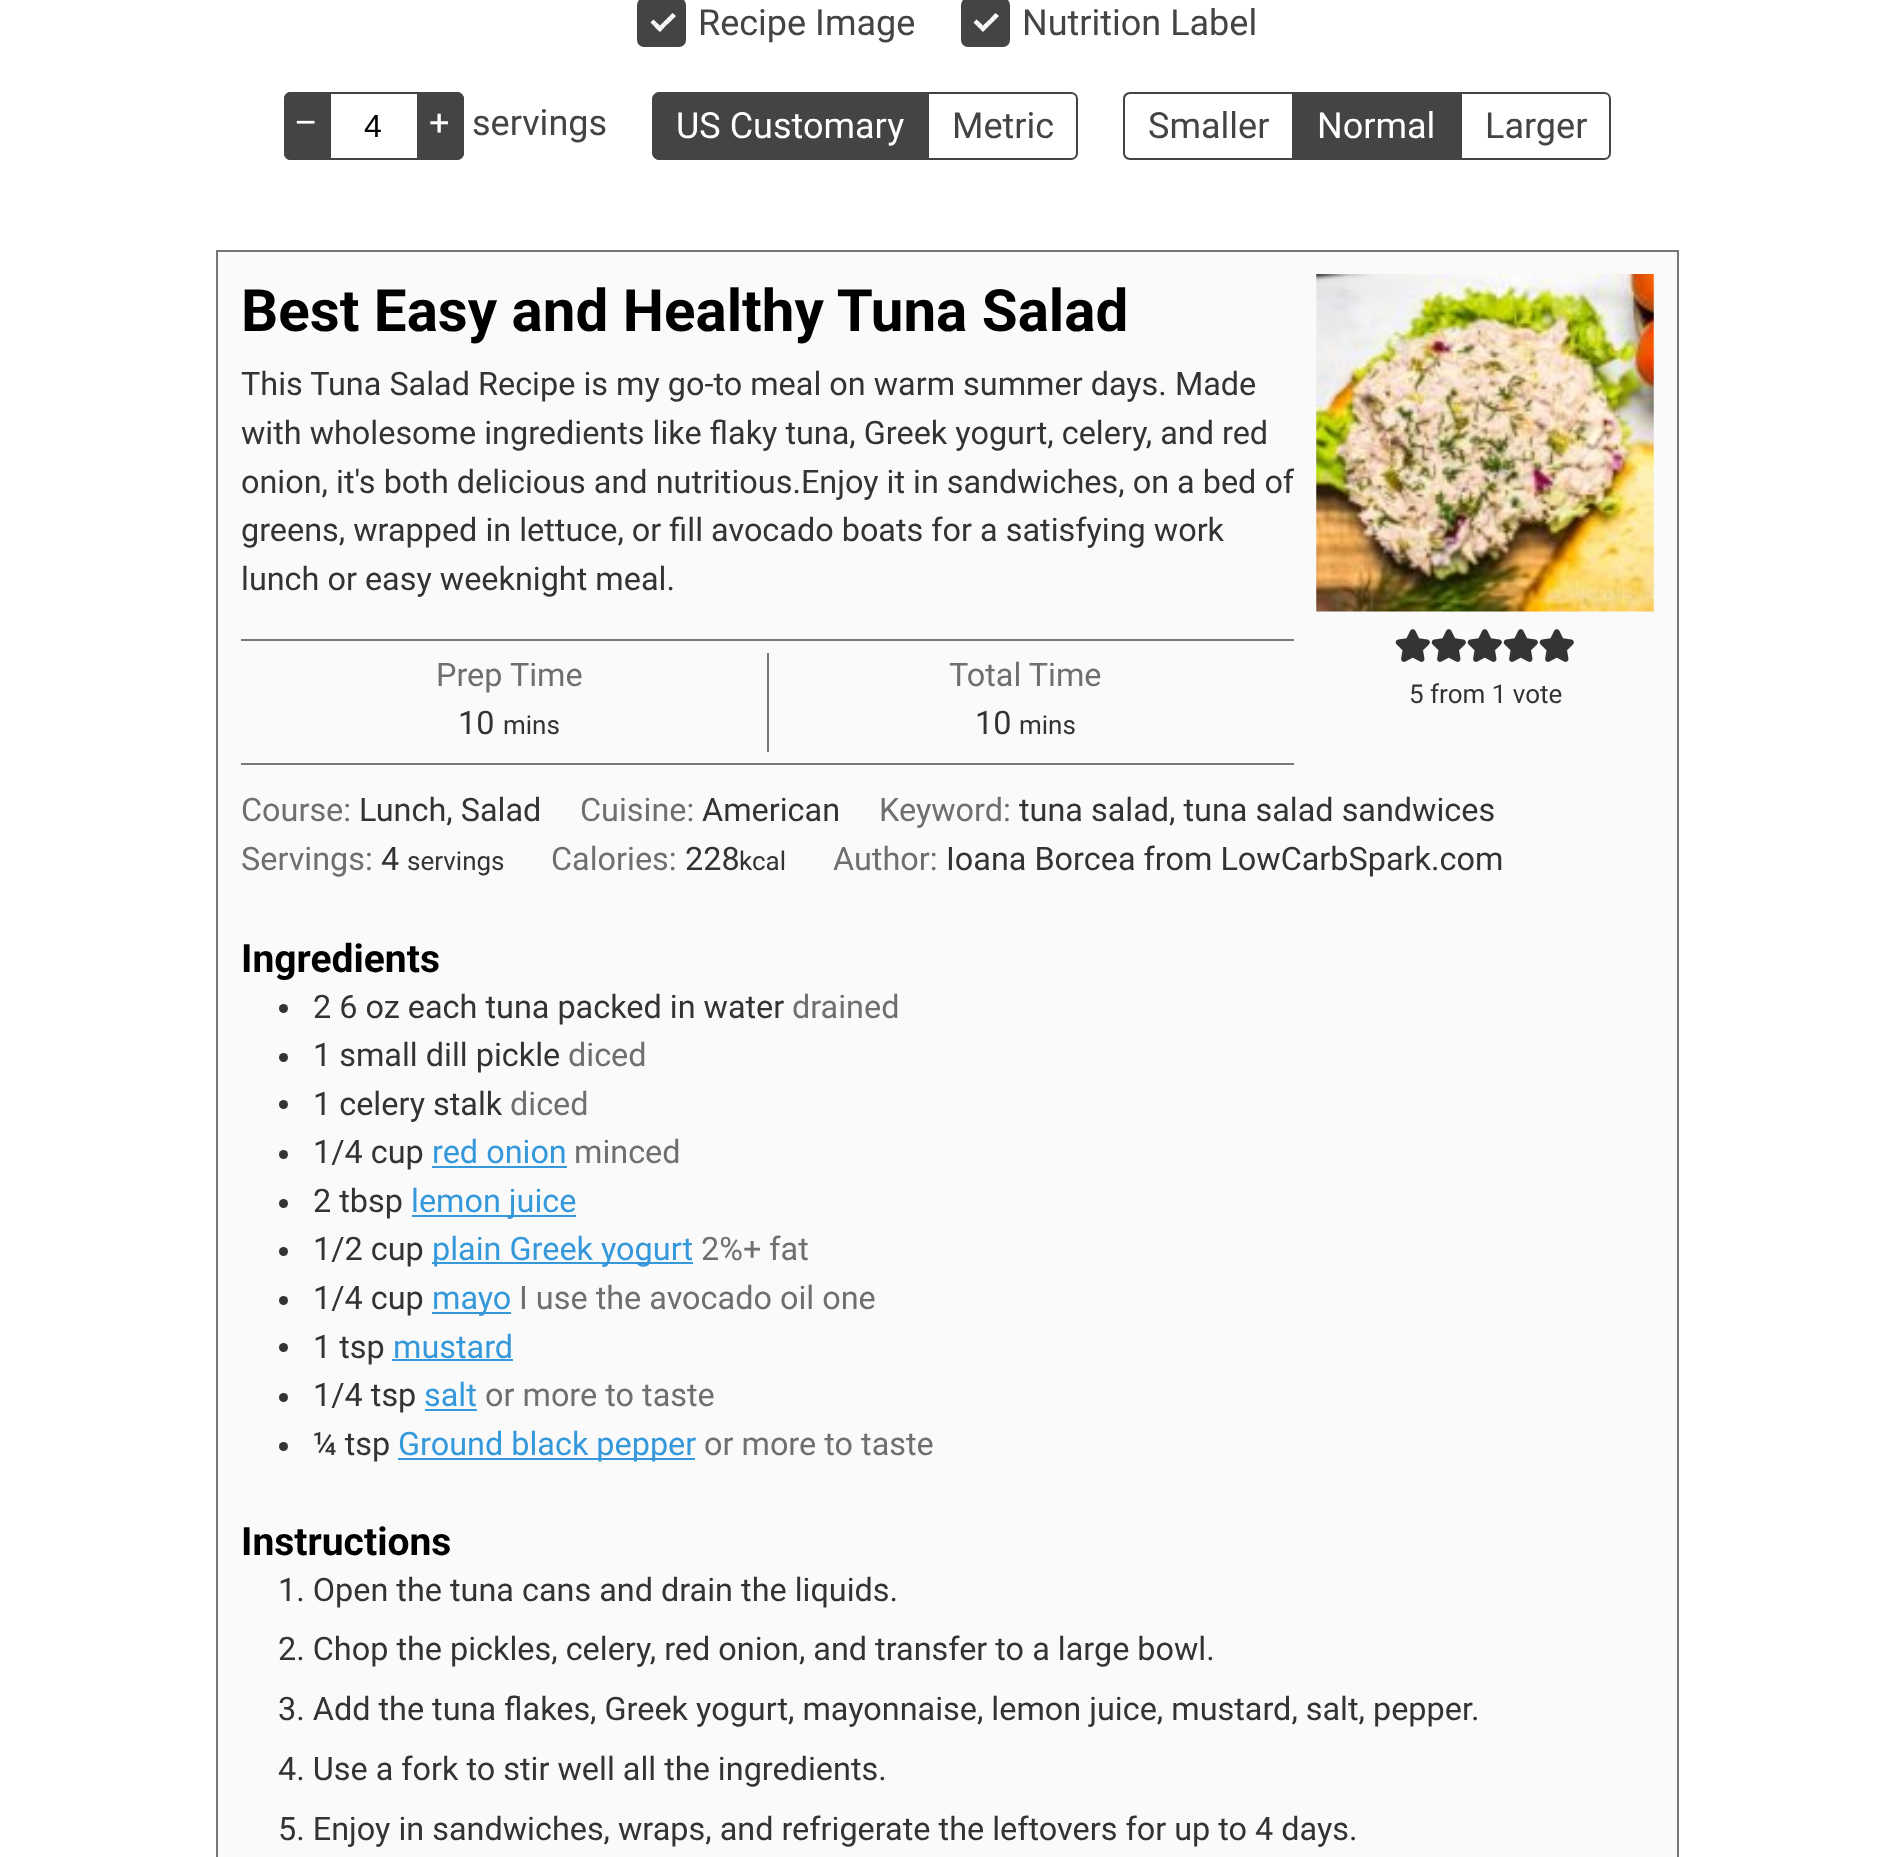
<svg xmlns="http://www.w3.org/2000/svg" width="1893" height="1857">
<style>
.a{font:36px Roboto;fill:#444}
.b{font:36px Roboto;fill:#fff}
.c{font:32px Liberation Sans;fill:#000}
.d{font:bold 58.3px Roboto;fill:#000}
.e{font:32.4px Roboto;fill:#333}
.f{font:32.4px Roboto;fill:#6f6f6f}
.g{font:26px Roboto;fill:#333}
.h{font:bold 39px Roboto;fill:#000}
.i{font:32.4px Roboto;fill:#3498db}
</style>
<rect width="100%" height="100%" fill="#fff"/>
<rect fill="#444" stroke="#444" stroke-width="2" x="638" y="-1" width="47" height="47" rx="6"/>
<path fill="#fff" d="M672.5 13l3.5 3l-3.5 3.5l-3-3.5z"/>
<path fill="#fff" d="M669.5 16l3 3.5l-3 3l-3.5-3z"/>
<path fill="#fff" d="M666 19.5l3.5 3l-3.5 3l-3-3z"/>
<path fill="#fff" d="M663 22.5l3 3l-3 3.5l-3-3.5z"/>
<path fill="#fff" d="M660 25.5l3 3.5l-3 3l-3.5-3z"/>
<path fill="#fff" d="M653.5 25.5l3 3.5l3.5-3.5l-3.5-3z"/>
<path fill="#fff" d="M653.5 19.5l3 3l-3 3l-3-3z"/>
<rect fill="#444" stroke="#444" stroke-width="2" x="962" y="-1" width="47" height="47" rx="6"/>
<path fill="#fff" d="M995.5 13l3.5 3l-3.5 3.5l-3-3.5z"/>
<path fill="#fff" d="M992.5 16l3 3.5l-3 3l-3-3z"/>
<path fill="#fff" d="M989.5 19.5l3 3l-3 3l-3.5-3z"/>
<path fill="#fff" d="M986 22.5l3.5 3l-3.5 3.5l-3-3.5z"/>
<path fill="#fff" d="M983 25.5l3 3.5l-3 3l-3-3z"/>
<path fill="#fff" d="M980 22.5l3 3l-3 3.5l-3.5-3.5z"/>
<path fill="#fff" d="M976.5 19.5l3.5 3l-3.5 3l-3-3z"/>
<path fill="#444" d="M291 92h38v68h-38c-4 0-7-3-7-7v-54c0-4 3-7 7-7z"/>
<path fill="#444" fill-rule="evenodd" d="M290 92h38v68h-38c-3 0-6-3-6-7v-54c0-4 3-7 6-7zm0 2h38v64h-38c-2 0-4-3-4-5v-54c0-2 2-5 4-5z"/>
<path fill="none" stroke="#444" stroke-width="2" d="M330 93h88v66H330z"/>
<path fill="#444" d="M419 92h38c4 0 7 3 7 7v54c0 4-3 7-7 7h-38z"/>
<path fill="#444" fill-rule="evenodd" d="M418 92h39c3 0 7 3 7 7v54c0 4-4 7-7 7h-39zm0 2h39c2 0 4 3 4 5v54c0 2-2 5-4 5h-39z"/>
<path fill="#444" d="M660 92h267v68h-267c-4 0-7-3-7-7v-54c0-4 3-7 7-7z"/>
<path fill="#444" fill-rule="evenodd" d="M659 92h268v68h-268c-3 0-7-3-7-7v-54c0-4 4-7 7-7zm0 2h268v64h-268c-2 0-4-3-4-5v-54c0-2 2-5 4-5z"/>
<path fill="none" stroke="#444" stroke-width="2" d="M928 93h143c3.5 0 6 2.5 6 6v54c0 3.5-2.5 6-6 6h-143z"/>
<path fill="#444" fill-rule="evenodd" d="M1130 92h162v68h-162c-4 0-7-3-7-7v-54c0-4 3-7 7-7zm0 2h162v64h-162c-3 0-5-3-5-5v-54c0-2 2-5 5-5z"/>
<path fill="#444" d="M1292 92h168v68H1292z"/>
<path fill="none" stroke="#444" stroke-width="2" d="M1461 93h143c3.5 0 6 2.5 6 6v54c0 3.5-2.5 6-6 6h-143z"/>
<path fill="#fafafa" stroke="#777" stroke-width="2" d="M217 251h1461v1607H217z"/>
<path fill="#777" d="M241 639h1053v2H241z"/>
<path fill="#777" d="M241 763h1053v2H241z"/>
<path fill="#777" d="M767 653h2v99H767z"/>
<image href="1.png" x="1316" y="274" width="338" height="338"/>
<image href="2.png" x="1395" y="629" width="35" height="33"/>
<image href="2.png" x="1431" y="629" width="35" height="33"/>
<image href="2.png" x="1467" y="629" width="35" height="33"/>
<image href="2.png" x="1503" y="629" width="35" height="33"/>
<image href="2.png" x="1539" y="629" width="35" height="33"/>
<circle fill="#333" cx="283.5" cy="1008.5" r="4.5"/>
<circle fill="#333" cx="283.5" cy="1057.5" r="4.5"/>
<circle fill="#333" cx="283.5" cy="1104.5" r="4.5"/>
<circle fill="#333" cx="283.5" cy="1154.5" r="4.5"/>
<path fill="#3498db" d="M432 1166h135v2H432z"/>
<circle fill="#333" cx="283.5" cy="1203.5" r="4.5"/>
<path fill="#3498db" d="M412 1215h164v2H412z"/>
<circle fill="#333" cx="283.5" cy="1251.5" r="4.5"/>
<path fill="#3498db" d="M432 1262h261v2H432z"/>
<circle fill="#333" cx="283.5" cy="1300.5" r="4.5"/>
<path fill="#3498db" d="M432 1312h79v2H432z"/>
<circle fill="#333" cx="283.5" cy="1347.5" r="4.5"/>
<path fill="#3498db" d="M392 1359h121v2H392z"/>
<circle fill="#333" cx="283.5" cy="1397.5" r="4.5"/>
<path fill="#3498db" d="M425 1409h52v2H425z"/>
<circle fill="#333" cx="283.5" cy="1446.5" r="4.5"/>
<path fill="#3498db" d="M398 1458h297v2H398z"/>
<text class="a" x="698" y="35">Recipe Image</text>
<text class="a" x="1022" y="35">Nutrition Label</text>
<text class="b" x="294" y="135">–</text>
<text class="c" x="364" y="137">4</text>
<text class="b" x="429" y="135">+</text>
<text class="a" x="472" y="135">servings</text>
<text class="b" x="676" y="138">US Customary</text>
<text class="a" x="952" y="138">Metric</text>
<text class="a" x="1148" y="138">Smaller</text>
<text class="b" x="1317" y="138">Normal</text>
<text class="a" x="1485" y="138">Larger</text>
<text class="d" x="241" y="331">Best Easy and Healthy Tuna Salad</text>
<text class="e" x="241" y="395">This Tuna Salad Recipe is my go-to meal on warm summer days. Made</text>
<text class="e" x="241" y="444">with wholesome ingredients like flaky tuna, Greek yogurt, celery, and red</text>
<text class="e" x="241" y="493">onion, it's both delicious and nutritious.Enjoy it in sandwiches, on a bed of</text>
<text class="e" x="241" y="541">greens, wrapped in lettuce, or fill avocado boats for a satisfying work</text>
<text class="e" x="241" y="590">lunch or easy weeknight meal.</text>
<text class="f" x="436" y="686">Prep Time</text>
<text class="e" x="458" y="734">10</text>
<text class="g" x="503" y="734">mins</text>
<text class="f" x="949" y="686">Total Time</text>
<text class="e" x="975" y="734">10</text>
<text class="g" x="1019" y="734">mins</text>
<text class="g" x="1409" y="703">5 from 1 vote</text>
<text class="f" x="241" y="821">Course:</text>
<text class="e" x="359" y="821">Lunch, Salad</text>
<text class="f" x="580" y="821">Cuisine:</text>
<text class="e" x="702" y="821">American</text>
<text class="f" x="879" y="821">Keyword:</text>
<text class="e" x="1019" y="821">tuna salad, tuna salad sandwices</text>
<text class="f" x="241" y="870">Servings:</text>
<text class="e" x="381" y="870">4</text>
<text class="g" x="407" y="870">servings</text>
<text class="f" x="551" y="870">Calories:</text>
<text class="e" x="685" y="870">228</text>
<text class="g" x="739" y="870">kcal</text>
<text class="f" x="833" y="870">Author:</text>
<text class="e" x="946" y="870">Ioana Borcea from LowCarbSpark.com</text>
<text class="h" x="241" y="972">Ingredients</text>
<text class="e" x="313" y="1018">2 6 oz each tuna packed in water</text>
<text class="f" x="792" y="1018">drained</text>
<text class="e" x="313" y="1066">1 small dill pickle</text>
<text class="f" x="568" y="1066">diced</text>
<text class="e" x="313" y="1115">1 celery stalk</text>
<text class="f" x="510" y="1115">diced</text>
<text class="e" x="313" y="1163">1/4 cup</text>
<text class="i" x="432" y="1163">red onion</text>
<text class="f" x="574" y="1163">minced</text>
<text class="e" x="313" y="1212">2 tbsp</text>
<text class="i" x="411" y="1212">lemon juice</text>
<text class="e" x="313" y="1260">1/2 cup</text>
<text class="i" x="432" y="1260">plain Greek yogurt</text>
<text class="f" x="701" y="1260">2%+ fat</text>
<text class="e" x="313" y="1309">1/4 cup</text>
<text class="i" x="432" y="1309">mayo</text>
<text class="f" x="519" y="1309">I use the avocado oil one</text>
<text class="e" x="313" y="1358">1 tsp</text>
<text class="i" x="393" y="1358">mustard</text>
<text class="e" x="313" y="1406">1/4 tsp</text>
<text class="i" x="424" y="1406">salt</text>
<text class="f" x="485" y="1406">or more to taste</text>
<text class="e" x="313" y="1455">¼ tsp</text>
<text class="i" x="398" y="1455">Ground black pepper</text>
<text class="f" x="704" y="1455">or more to taste</text>
<text class="h" x="241" y="1555">Instructions</text>
<text class="e" x="278" y="1601">1. Open the tuna cans and drain the liquids.</text>
<text class="e" x="278" y="1660">2. Chop the pickles, celery, red onion, and transfer to a large bowl.</text>
<text class="e" x="278" y="1720">3. Add the tuna flakes, Greek yogurt, mayonnaise, lemon juice, mustard, salt, pepper.</text>
<text class="e" x="278" y="1780">4. Use a fork to stir well all the ingredients.</text>
<text class="e" x="278" y="1840">5. Enjoy in sandwiches, wraps, and refrigerate the leftovers for up to 4 days.</text>
</svg>
